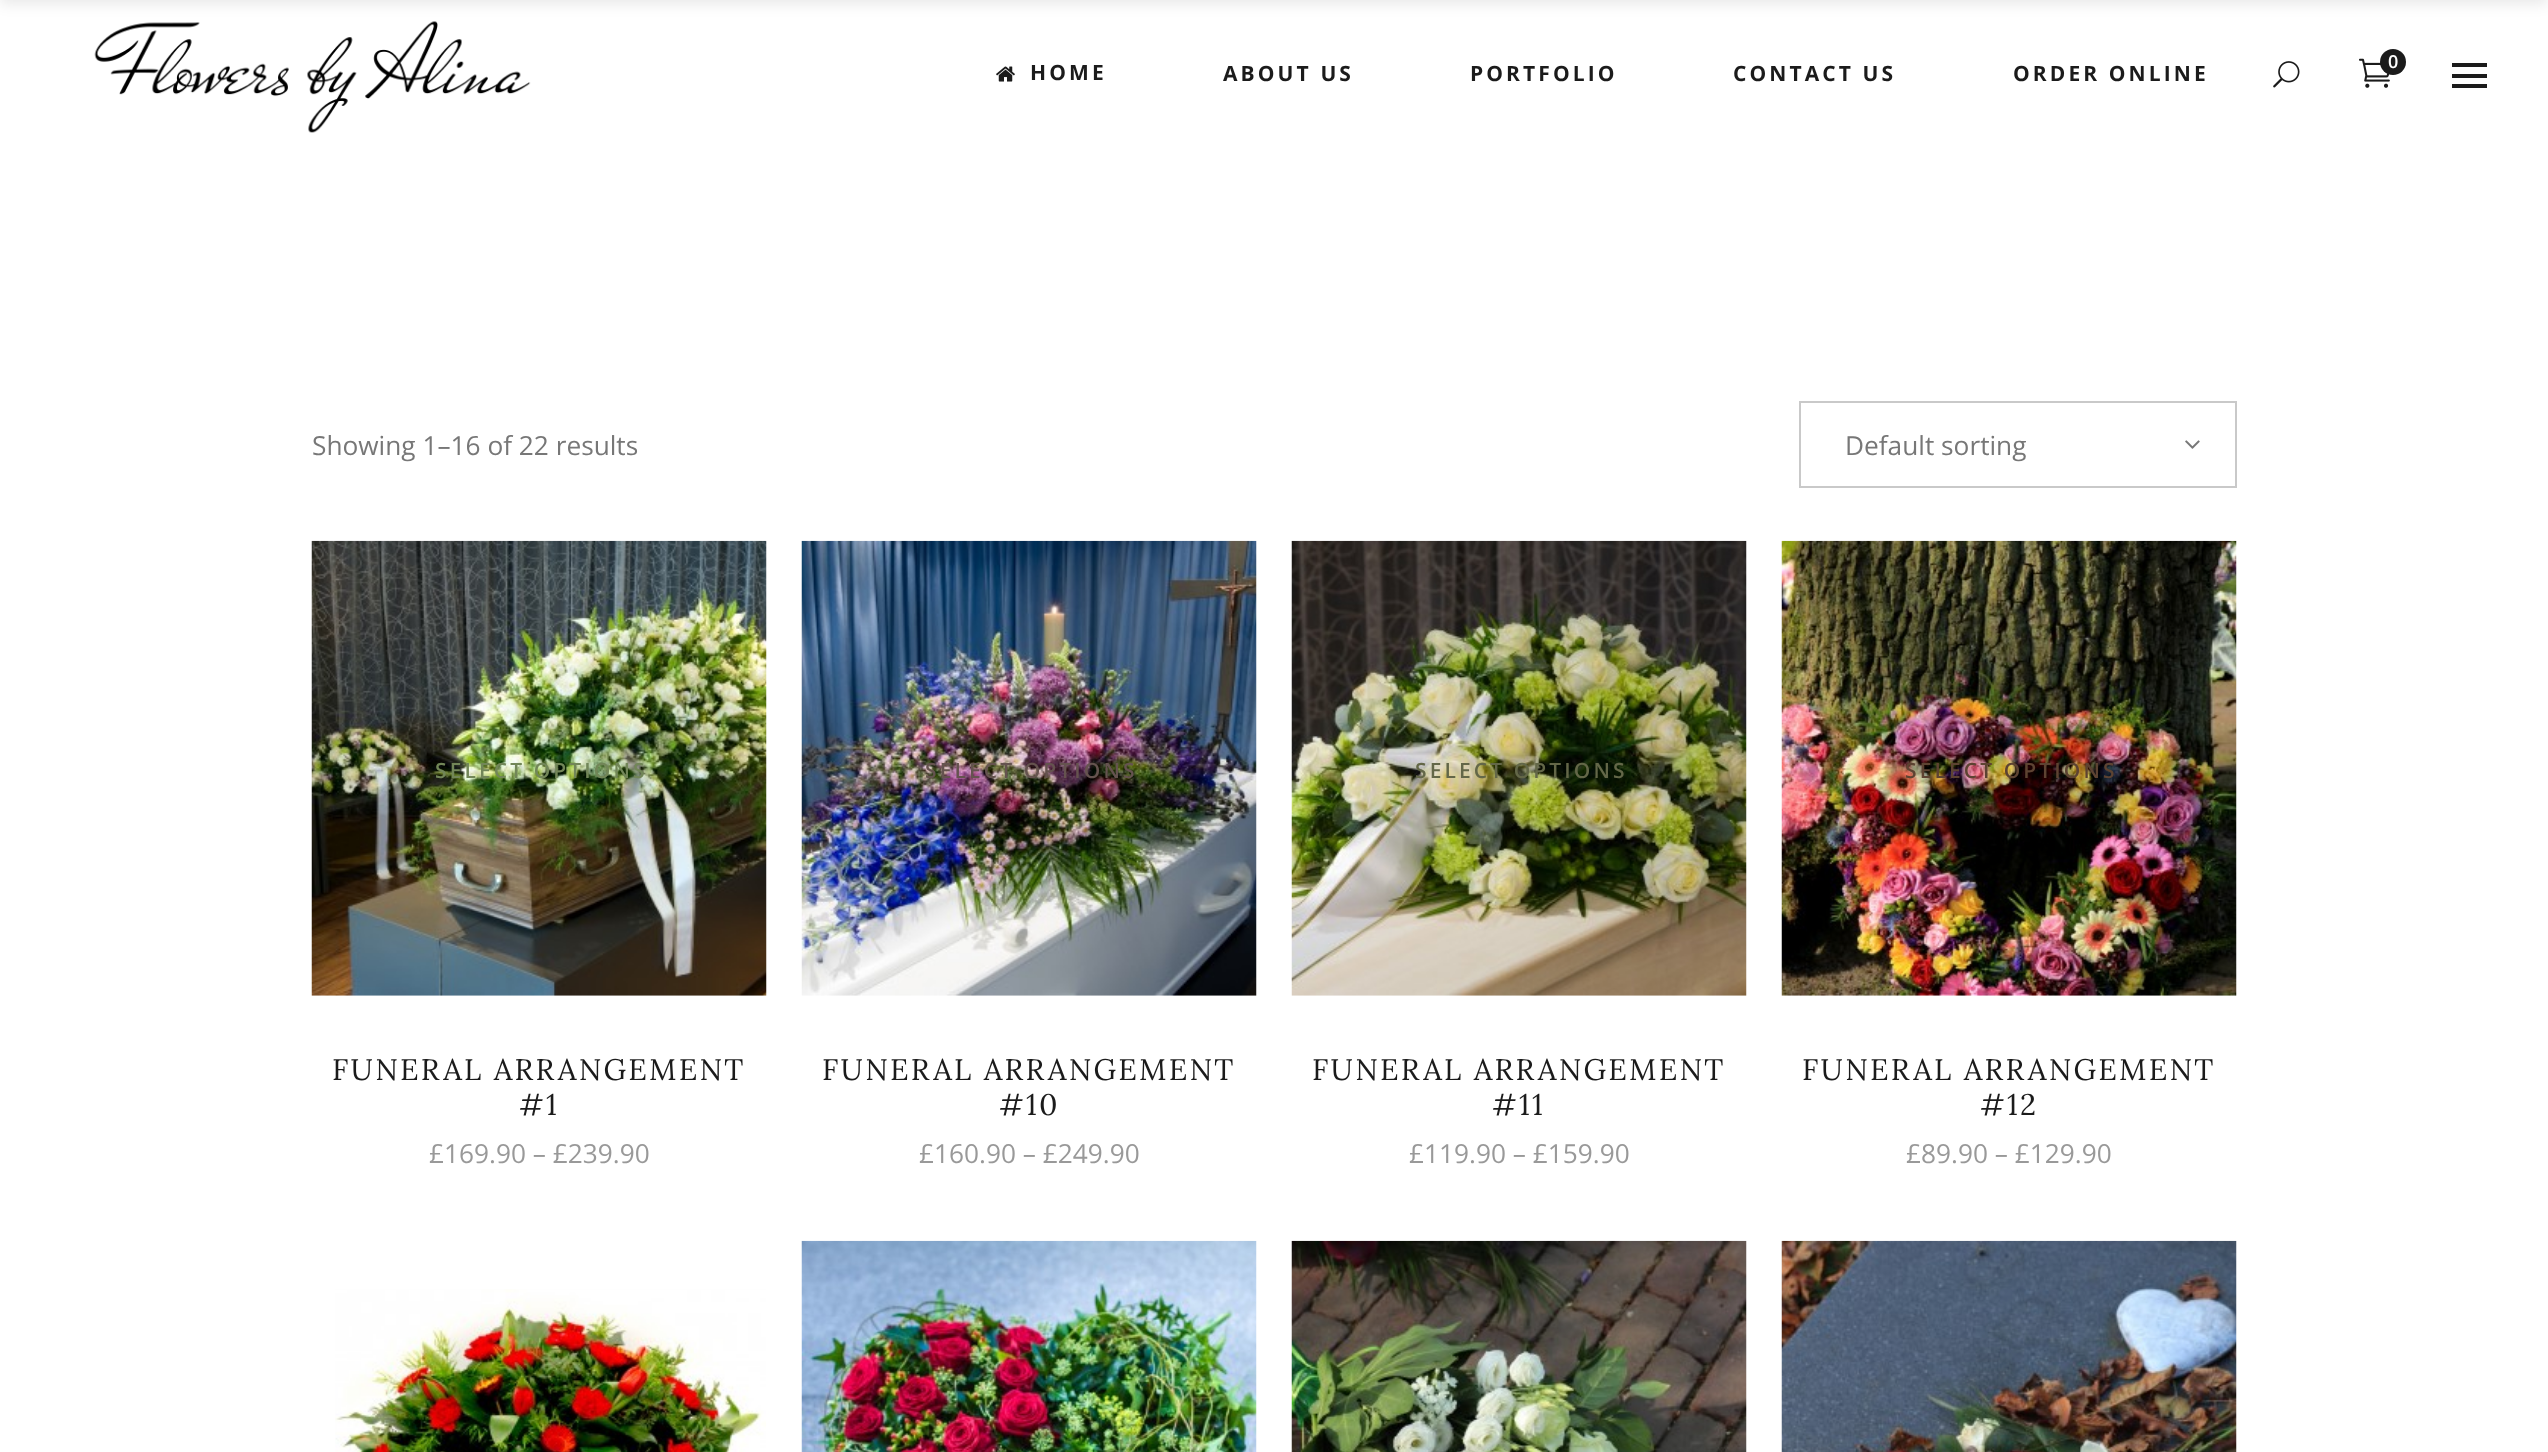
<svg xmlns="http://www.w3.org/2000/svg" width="2548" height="1452">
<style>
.a{font:bold 21px Open Sans;letter-spacing:3.1px;fill:#1b1b1b}
.b{font:600 18px Open Sans;fill:#fff}
.c{font:26.25px Open Sans;fill:#777}
.d{font:600 21px Open Sans;letter-spacing:3.1px;fill:#728658}
.e{font:29.75px Lora;letter-spacing:2.25px;fill:#1b1b1b}
.f{font:26.25px Open Sans;fill:#999}
.g{font:600 21px Open Sans;letter-spacing:3.1px;fill:#65534f}
.h{font:600 21px Open Sans;letter-spacing:3.1px;fill:#636748}
.i{font:600 21px Open Sans;letter-spacing:3.1px;fill:#5d4332}
</style>
<rect width="100%" height="100%" fill="#fff"/>
<image href="1.png" x="94" y="21" width="437" height="112"/>
<path fill="#00000017" filter="blur(7px)" d="M0 -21h2548v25H0z"/>
<image href="2.png" x="996" y="66" width="19" height="16"/>
<image href="3.png" x="2273" y="61" width="27" height="27"/>
<image href="4.png" x="2359" y="58" width="31" height="30"/>
<circle fill="#1b1b1b" cx="2393" cy="62" r="13"/>
<path fill="#1b1b1b" d="M2452 63h35v4H2452z"/>
<path fill="#1b1b1b" d="M2452 74h35v4H2452z"/>
<path fill="#1b1b1b" d="M2452 84h35v4H2452z"/>
<path fill="none" stroke="#c9c9c9" stroke-width="2" d="M1800 402h436v85H1800z"/>
<image href="5.png" x="2185" y="440" width="15" height="9"/>
<image href="6.png" x="311" y="540" width="456" height="456"/>
<image href="7.png" x="801" y="540" width="456" height="456"/>
<image href="8.png" x="1291" y="540" width="456" height="456"/>
<image href="9.png" x="1781" y="540" width="456" height="456"/>
<image href="10.png" x="335" y="1289" width="431" height="163"/>
<image href="11.png" x="801" y="1240" width="456" height="212"/>
<image href="12.png" x="1291" y="1240" width="456" height="212"/>
<image href="13.png" x="1781" y="1240" width="456" height="212"/>
<text class="a" x="1030" y="80">HOME</text>
<text class="a" x="1223" y="81">ABOUT US</text>
<text class="a" x="1470" y="81">PORTFOLIO</text>
<text class="a" x="1733" y="81">CONTACT US</text>
<text class="a" x="2013" y="81">ORDER ONLINE</text>
<text class="b" x="2388" y="68">0</text>
<text class="c" x="312" y="455">Showing 1–16 of 22 results</text>
<text class="c" x="1845" y="455">Default sorting</text>
<text class="d" x="435" y="778">SELECT OPTIONS</text>
<text class="e" x="332" y="1080">FUNERAL ARRANGEMENT</text>
<text class="e" x="519" y="1115">#1</text>
<text class="f" x="429" y="1163">£169.90 – £239.90</text>
<text class="g" x="925" y="778">SELECT OPTIONS</text>
<text class="e" x="822" y="1080">FUNERAL ARRANGEMENT</text>
<text class="e" x="999" y="1115">#10</text>
<text class="f" x="919" y="1163">£160.90 – £249.90</text>
<text class="h" x="1415" y="778">SELECT OPTIONS</text>
<text class="e" x="1312" y="1080">FUNERAL ARRANGEMENT</text>
<text class="e" x="1492" y="1115">#11</text>
<text class="f" x="1409" y="1163">£119.90 – £159.90</text>
<text class="i" x="1905" y="778">SELECT OPTIONS</text>
<text class="e" x="1802" y="1080">FUNERAL ARRANGEMENT</text>
<text class="e" x="1980" y="1115">#12</text>
<text class="f" x="1906" y="1163">£89.90 – £129.90</text>
</svg>
